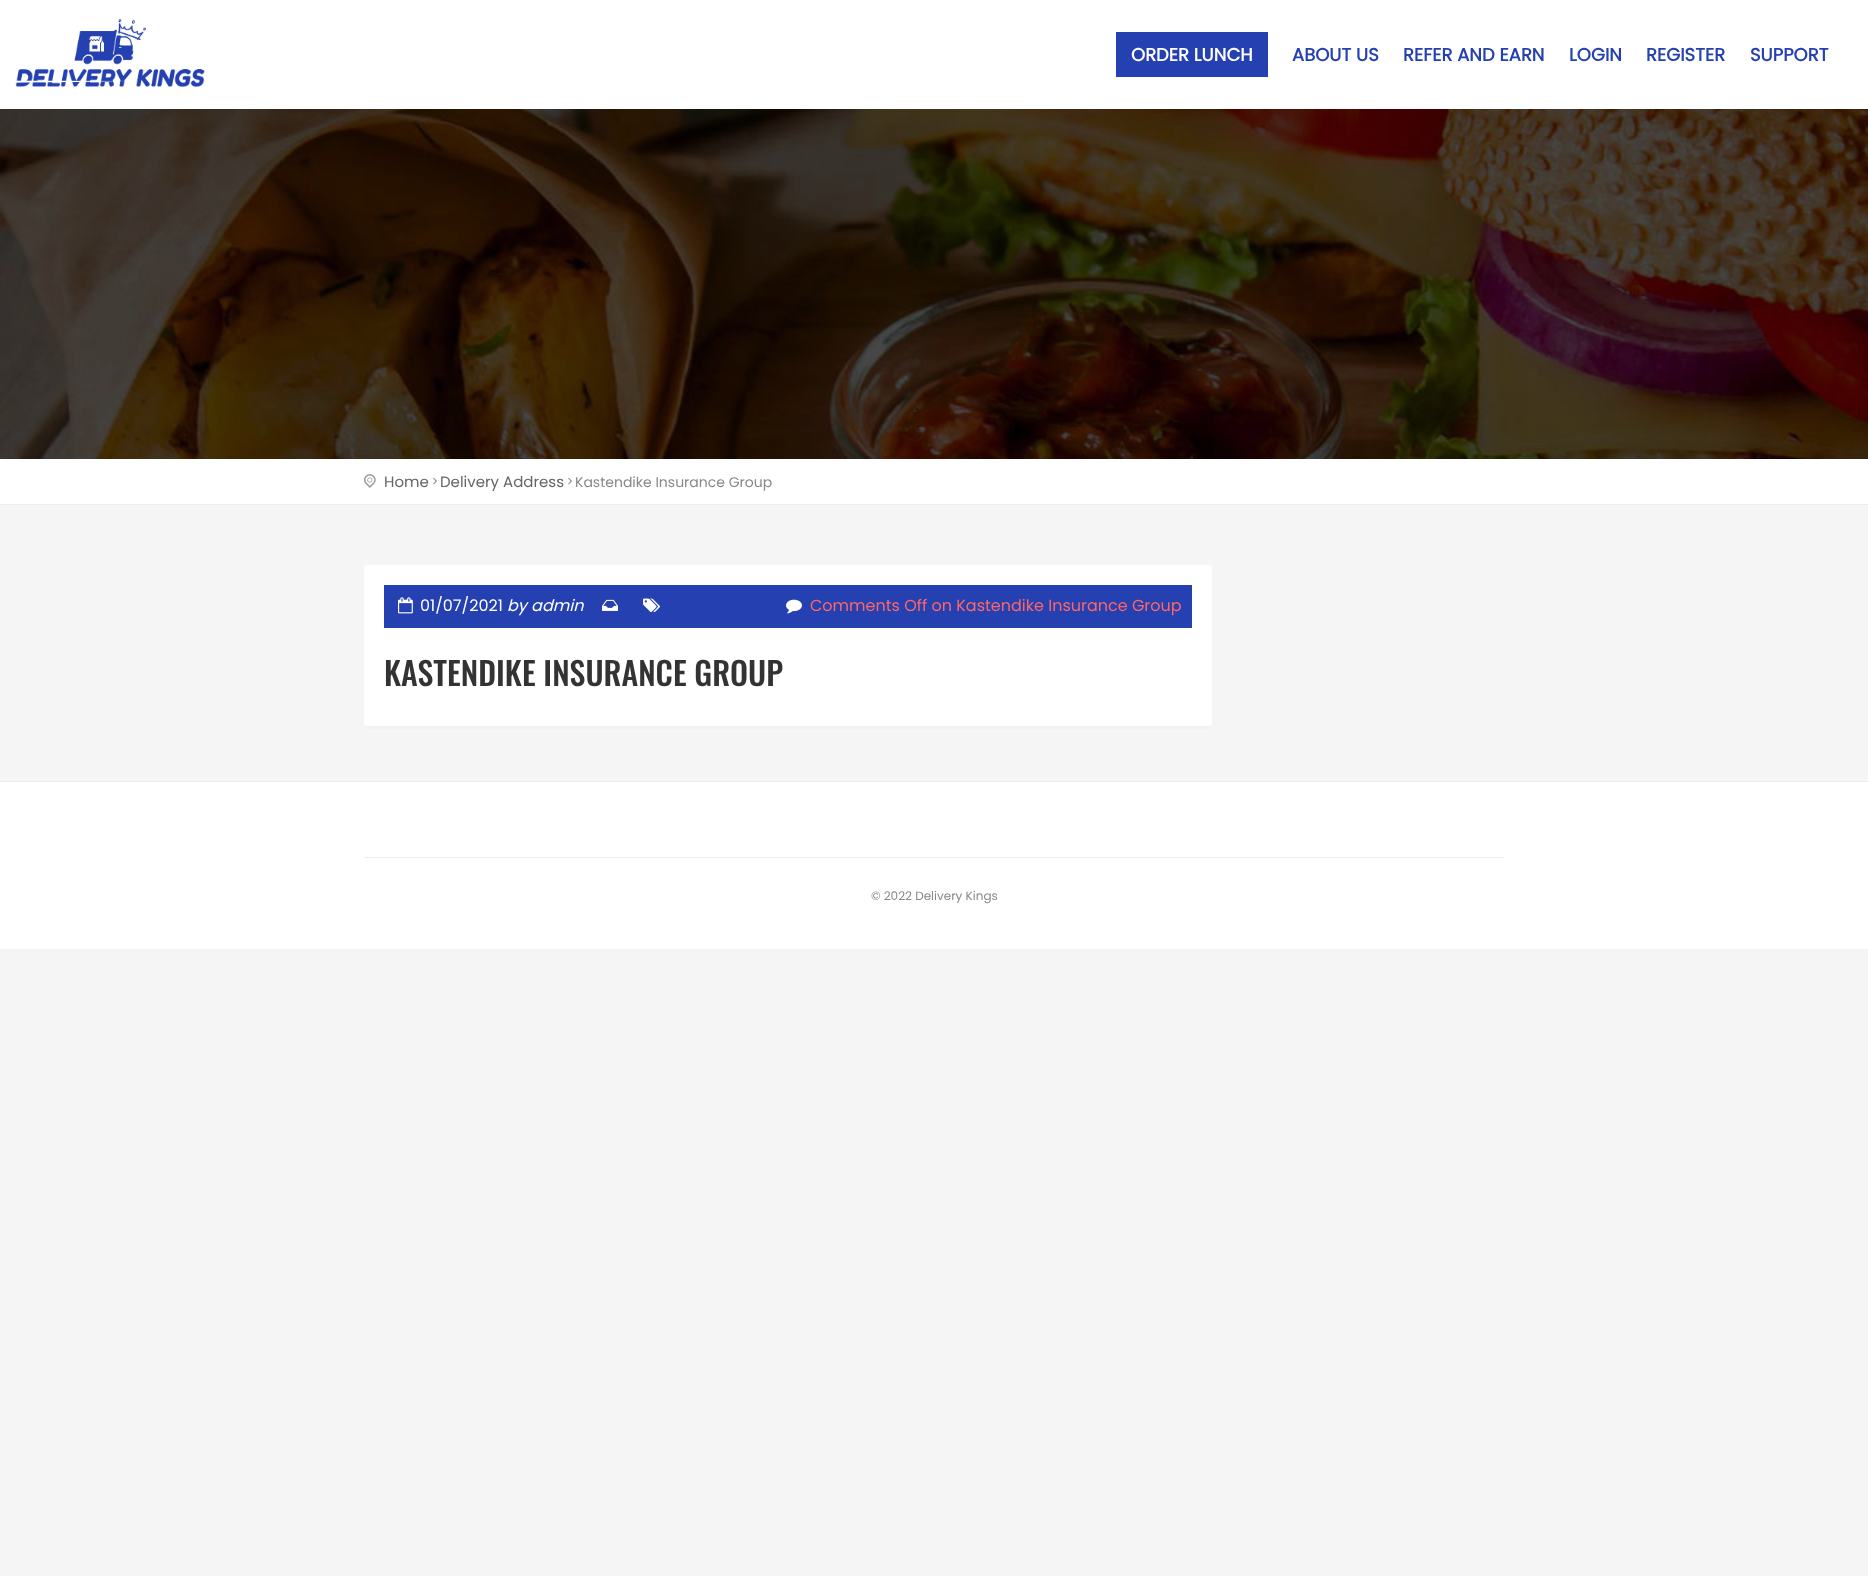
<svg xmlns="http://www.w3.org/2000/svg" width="1868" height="1576">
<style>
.a{font:bold 18px Poppins;fill:#fff}
.b{font:bold 18px Poppins;fill:#2440b1}
.c{font:15px Poppins;fill:#666}
.d{font:14px Poppins;fill:#888}
.e{font:16px Poppins;fill:#fff}
.f{font:italic 16px Poppins;fill:#fff}
.g{font:16px Poppins;fill:#f66}
.h{font:500 32px Oswald;fill:#333}
.i{font:12px Poppins;fill:#888}
</style>
<rect width="100%" height="100%" fill="#f5f5f5"/>
<path fill="#fff" d="M0 0h1868v109H0z"/>
<image href="1.png" x="15" y="18" width="190" height="69"/>
<path fill="#2440b1" d="M1116 32h152v45H1116z"/>
<image href="2.png" x="0" y="109" width="1868" height="350"/>
<path fill="#fff" d="M0 459h1868v45H0z"/>
<path fill="#ededed" d="M0 504h1868v1H0z"/>
<image href="3.png" x="364" y="474" width="12" height="14"/>
<image href="4.png" x="433" y="477" width="4" height="8"/>
<image href="4.png" x="568" y="477" width="4" height="8"/>
<path fill="#f0f2f4" d="M364 723c0 2 0 6 3 6h842l2-1l1-5c0 2-1 3-3 3h-842c-2 0-3-1-3-3z"/>
<rect fill="#fff" x="364" y="565" width="848" height="161" rx="3"/>
<path fill="#2440b1" d="M384 585h808v43H384z"/>
<image href="5.png" x="398" y="597" width="15" height="17"/>
<image href="6.png" x="602" y="599" width="16" height="12"/>
<image href="7.png" x="643" y="598" width="17" height="15"/>
<image href="8.png" x="786" y="599" width="16" height="15"/>
<path fill="#fff" d="M0 782h1868v167H0z"/>
<path fill="#ededed" d="M0 781h1868v1H0z"/>
<path fill="#ededed" d="M364 857h1140v1H364z"/>
<text class="a" x="1131" y="61">ORDER LUNCH</text>
<text class="b" x="1292" y="61">ABOUT US</text>
<text class="b" x="1403" y="61">REFER AND EARN</text>
<text class="b" x="1569" y="61">LOGIN</text>
<text class="b" x="1646" y="61">REGISTER</text>
<text class="b" x="1750" y="61">SUPPORT</text>
<text class="c" x="384" y="487">Home</text>
<text class="c" x="440" y="487">Delivery Address</text>
<text class="d" x="575" y="487">Kastendike Insurance Group</text>
<text class="e" x="420" y="611">01/07/2021</text>
<text class="f" x="507" y="611">by admin</text>
<text class="g" x="810" y="611">Comments Off on Kastendike Insurance Group</text>
<text class="h" x="384" y="686">KASTENDIKE INSURANCE GROUP</text>
<text class="i" x="871" y="900">© 2022 Delivery Kings</text>
</svg>
